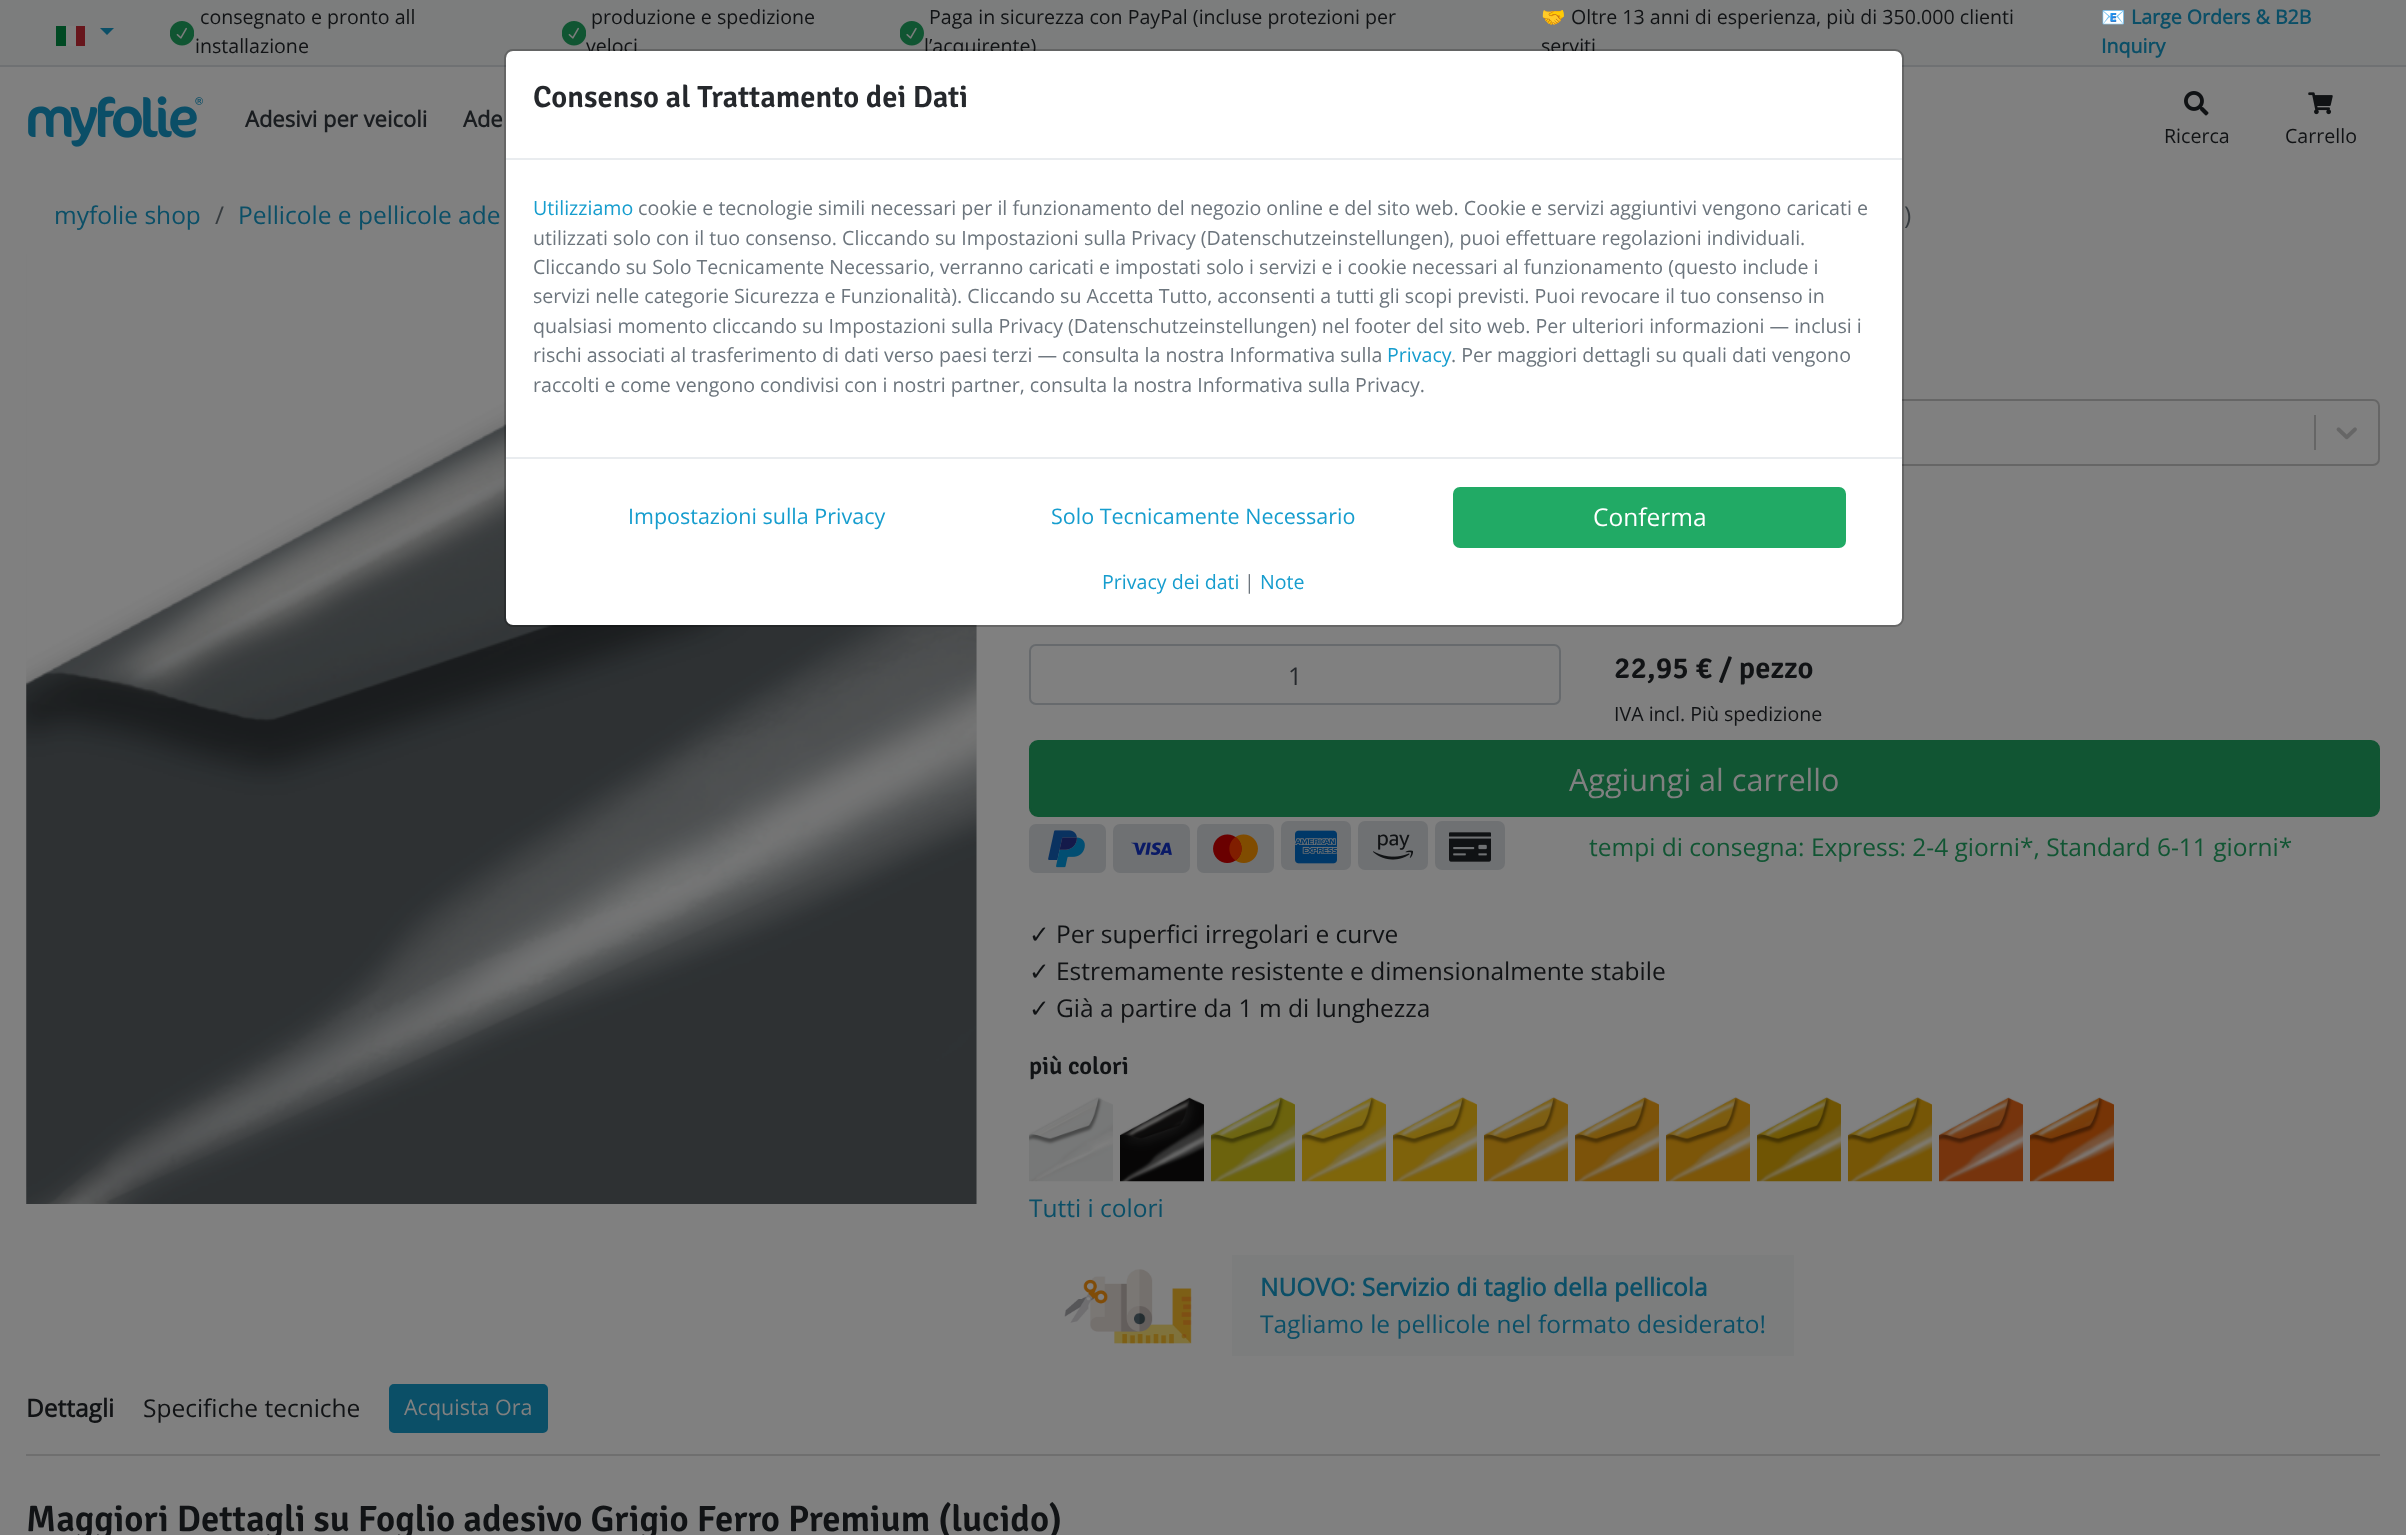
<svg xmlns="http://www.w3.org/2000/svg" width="2406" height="1535">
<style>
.a{font:19.6px Open Sans;fill:#111315}
.b{font:19.6px Noto Color Emoji;fill:#111315}
.c{font:19.6px Noto Color Emoji;fill:#0b4f67}
.d{font:bold 19.6px Open Sans;fill:#0b4f67}
.e{font:bold 22px Open Sans;fill:#1a1d20}
.f{font:24.5px Open Sans;fill:#0b4f67}
.g{font:24.5px Open Sans;fill:#363b3f}
.h{font:24.5px Open Sans;fill:#25282c}
.i{font:600 30.6px Signika;fill:#111315}
.j{font:30.6px Open Sans;fill:#808080}
.k{font:24.5px Open Sans;fill:#153}
.l{font:24.5px DejaVu Sans;fill:#111315}
.m{font:24.5px Open Sans;fill:#111315}
.n{font:600 24.5px Signika;fill:#111315}
.o{font:bold 24.5px Open Sans;fill:#0b4f67}
.p{font:bold 24.5px Open Sans;fill:#111315}
.q{font:21.5px Open Sans;fill:#808080}
.r{font:600 36.75px Signika;fill:#111315}
.s{font:600 30.6px Signika;fill:#25282c}
.t{font:19.6px Open Sans;fill:#169dce}
.u{font:19.6px Open Sans;fill:#6c757d}
.v{font:21.5px Open Sans;fill:#169dce}
.w{font:24.5px Open Sans;fill:#fff}
</style>
<rect width="100%" height="100%" fill="#808080"/>
<path fill="#7c7d7d" d="M0 0h2406v65H0z"/>
<path fill="#6f7173" d="M0 65h2406v2H0z"/>
<path fill="#004923" d="M56 26h10v20H56z"/>
<path fill="#808080" d="M66 26h10v20H66z"/>
<path fill="#67161c" d="M76 26h9v20H76z"/>
<path fill="#0b4f67" d="M100 28h14l-7 7z"/>
<image href="1.png" x="170" y="21" width="24" height="25"/>
<image href="1.png" x="562" y="21" width="24" height="25"/>
<image href="2.png" x="900" y="21" width="24" height="25"/>
<image href="3.png" x="28" y="96" width="175" height="51"/>
<image href="4.png" x="2184" y="91" width="25" height="25"/>
<image href="5.png" x="2308" y="92" width="25" height="23"/>
<path fill="#7c7d7d" d="M26 254h951v950H26z"/>
<image href="6.png" x="26" y="254" width="951" height="950"/>
<rect fill="none" stroke="#666" stroke-width="2" x="1030" y="400" width="1349" height="65" rx="6"/>
<path fill="#666" d="M2314 415h2v35H2314z"/>
<image href="7.png" x="2336" y="427" width="21" height="13"/>
<rect fill="none" stroke="#676a6d" stroke-width="2" x="1030" y="645" width="530" height="59" rx="6"/>
<rect fill="#153" stroke="#153" stroke-width="2" x="1030" y="741" width="1349" height="75" rx="8"/>
<rect fill="#6f7173" x="1029" y="824" width="77" height="49" rx="7"/>
<image href="8.png" x="1048" y="830" width="37" height="38"/>
<rect fill="#6f7173" x="1113" y="824" width="77" height="49" rx="7"/>
<image href="9.png" x="1131" y="842" width="41" height="13"/>
<rect fill="#6f7173" x="1197" y="824" width="77" height="49" rx="7"/>
<image href="10.png" x="1213" y="834" width="45" height="29"/>
<rect fill="#6f7173" x="1281" y="821" width="70" height="49" rx="7"/>
<image href="11.png" x="1295" y="830" width="42" height="34"/>
<rect fill="#6f7173" x="1358" y="821" width="70" height="49" rx="7"/>
<image href="12.png" x="1373" y="834" width="40" height="26"/>
<rect fill="#6f7173" x="1435" y="821" width="70" height="49" rx="7"/>
<image href="13.png" x="1449" y="832" width="42" height="30"/>
<image href="14.png" x="1029" y="1097" width="84" height="85"/>
<image href="15.png" x="1120" y="1097" width="84" height="85"/>
<image href="16.png" x="1211" y="1097" width="84" height="85"/>
<image href="17.png" x="1302" y="1097" width="84" height="85"/>
<image href="18.png" x="1393" y="1097" width="84" height="85"/>
<image href="19.png" x="1484" y="1097" width="84" height="85"/>
<image href="20.png" x="1575" y="1097" width="84" height="85"/>
<image href="21.png" x="1666" y="1097" width="84" height="85"/>
<image href="22.png" x="1757" y="1097" width="84" height="85"/>
<image href="23.png" x="1848" y="1097" width="84" height="85"/>
<image href="24.png" x="1939" y="1097" width="84" height="85"/>
<image href="25.png" x="2030" y="1097" width="84" height="85"/>
<image href="26.png" x="1064" y="1269" width="128" height="75"/>
<path fill="#7c7d7d" d="M1232 1255h562v101H1232z"/>
<path fill="#6f6f6f" d="M26 1454h2354v2H26z"/>
<rect fill="#0b4f67" stroke="#0b4f67" stroke-width="2" x="390" y="1385" width="157" height="47" rx="4"/>
<text class="a" x="200" y="24">consegnato e pronto all</text>
<text class="a" x="195" y="53">installazione</text>
<text class="a" x="591" y="24">produzione e spedizione</text>
<text class="a" x="586" y="53">veloci</text>
<text class="a" x="929" y="24">Paga in sicurezza con PayPal (incluse protezioni per</text>
<text class="a" x="924" y="53">l’acquirente)</text>
<text class="b" x="1541" y="24">🤝</text>
<text class="a" x="1571" y="24">Oltre 13 anni di esperienza, più di 350.000 clienti</text>
<text class="a" x="1541" y="53">serviti</text>
<text class="c" x="2101" y="24">📧</text>
<text class="d" x="2131" y="24">Large Orders &amp; B2B</text>
<text class="d" x="2101" y="53">Inquiry</text>
<text class="e" x="245" y="127">Adesivi per veicoli</text>
<text class="e" x="463" y="127">Ade</text>
<text class="a" x="2164" y="143">Ricerca</text>
<text class="a" x="2285" y="143">Carrello</text>
<text class="f" x="54" y="224">myfolie shop</text>
<text class="g" x="215" y="224">/</text>
<text class="f" x="238" y="224">Pellicole e pellicole ade</text>
<text class="g" x="1904" y="224">)</text>
<text class="h" x="1288" y="685">1</text>
<text class="i" x="1614" y="678">22,95 € / pezzo</text>
<text class="a" x="1614" y="721">IVA incl. Più spedizione</text>
<text class="j" x="1569" y="791">Aggiungi al carrello</text>
<text class="k" x="1589" y="856">tempi di consegna: Express: 2-4 giorni*, Standard 6-11 giorni*</text>
<text class="l" x="1029" y="943">✓</text>
<text class="m" x="1056" y="943">Per superfici irregolari e curve</text>
<text class="l" x="1029" y="980">✓</text>
<text class="m" x="1056" y="980">Estremamente resistente e dimensionalmente stabile</text>
<text class="l" x="1029" y="1017">✓</text>
<text class="m" x="1056" y="1017">Già a partire da 1 m di lunghezza</text>
<text class="n" x="1029" y="1074">più colori</text>
<text class="f" x="1029" y="1217">Tutti i colori</text>
<text class="o" x="1260" y="1296">NUOVO: Servizio di taglio della pellicola</text>
<text class="f" x="1260" y="1333">Tagliamo le pellicole nel formato desiderato!</text>
<text class="p" x="26" y="1417">Dettagli</text>
<text class="m" x="143" y="1417">Specifiche tecniche</text>
<text class="q" x="404" y="1415">Acquista Ora</text>
<text class="r" x="26" y="1531">Maggiori Dettagli su Foglio adesivo Grigio Ferro Premium (lucido)</text>
<rect fill="#fff" x="506" y="51" width="1396" height="574" rx="7"/>
<rect fill="none" stroke="#00000033" stroke-width="2" x="505" y="50" width="1398" height="576" rx="8"/>
<path fill="#e9ecef" d="M506 158h1396v2H506z"/>
<text class="s" x="533" y="107">Consenso al Trattamento dei Dati</text>
<text class="t" x="533" y="215">Utilizziamo</text>
<text class="u" x="638" y="215">cookie e tecnologie simili necessari per il funzionamento del negozio online e del sito web. Cookie e servizi aggiuntivi vengono caricati e</text>
<text class="u" x="533" y="245">utilizzati solo con il tuo consenso. Cliccando su Impostazioni sulla Privacy (Datenschutzeinstellungen), puoi effettuare regolazioni individuali.</text>
<text class="u" x="533" y="274">Cliccando su Solo Tecnicamente Necessario, verranno caricati e impostati solo i servizi e i cookie necessari al funzionamento (questo include i</text>
<text class="u" x="533" y="303">servizi nelle categorie Sicurezza e Funzionalità). Cliccando su Accetta Tutto, acconsenti a tutti gli scopi previsti. Puoi revocare il tuo consenso in</text>
<text class="u" x="533" y="333">qualsiasi momento cliccando su Impostazioni sulla Privacy (Datenschutzeinstellungen) nel footer del sito web. Per ulteriori informazioni — inclusi i</text>
<text class="u" x="533" y="362">rischi associati al trasferimento di dati verso paesi terzi — consulta la nostra Informativa sulla</text>
<text class="t" x="1387" y="362">Privacy</text>
<text class="u" x="1451" y="362">. Per maggiori dettagli su quali dati vengono</text>
<text class="u" x="533" y="392">raccolti e come vengono condivisi con i nostri partner, consulta la nostra Informativa sulla Privacy.</text>
<path fill="#e9ecef" d="M506 457h1396v2H506z"/>
<text class="v" x="628" y="524">Impostazioni sulla Privacy</text>
<text class="v" x="1051" y="524">Solo Tecnicamente Necessario</text>
<rect fill="#21aa65" stroke="#21aa65" stroke-width="2" x="1454" y="488" width="391" height="59" rx="6"/>
<text class="w" x="1593" y="526">Conferma</text>
<text class="t" x="1102" y="589">Privacy dei dati</text>
<text class="u" x="1244" y="589">|</text>
<text class="t" x="1260" y="589">Note</text>
</svg>
